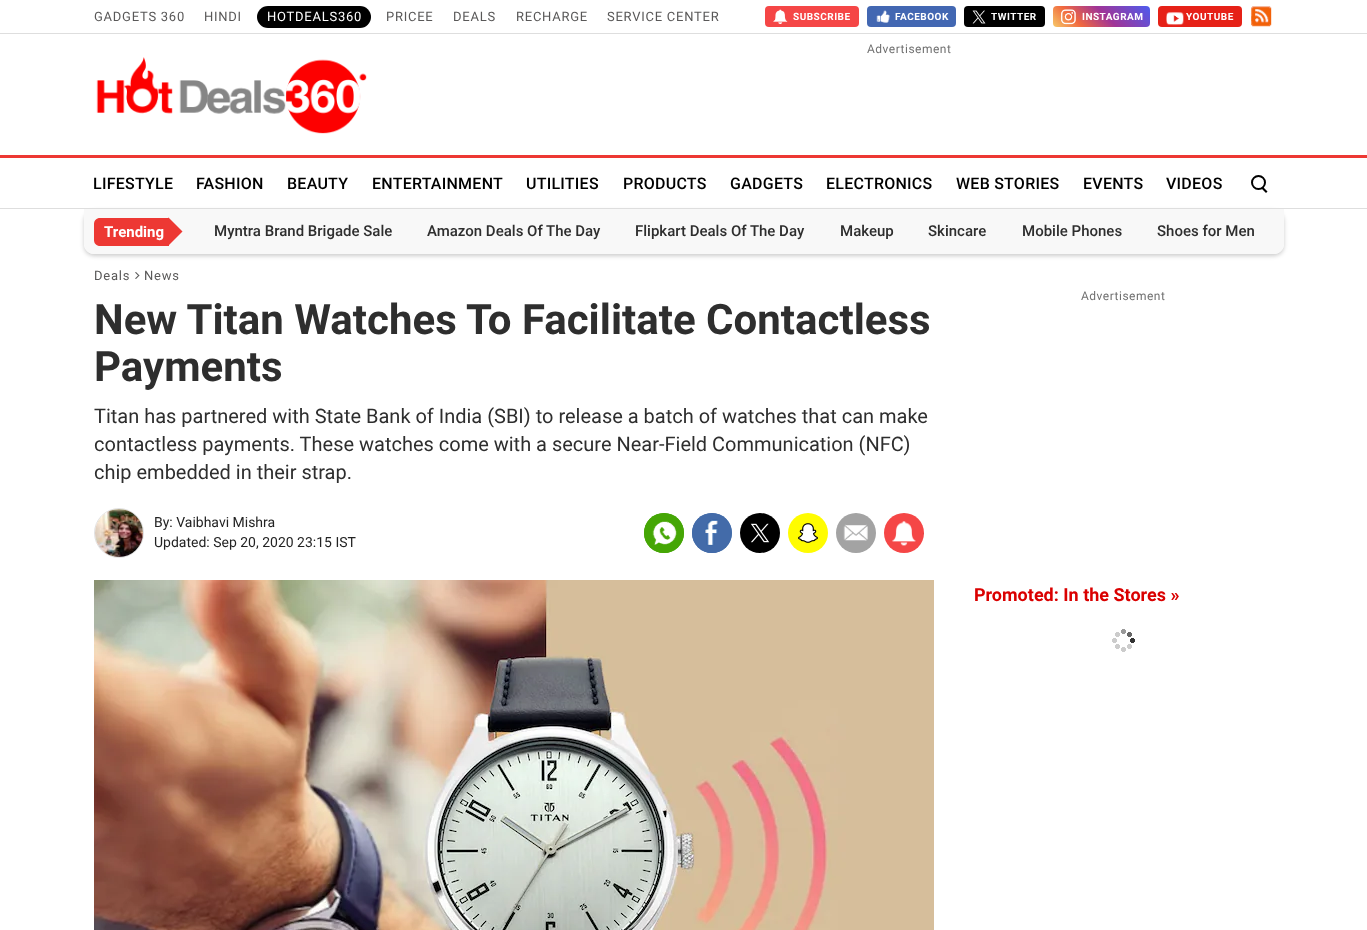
<svg xmlns="http://www.w3.org/2000/svg" width="1367" height="930">
<style>
.a{font:13px Roboto;letter-spacing:0.75px;fill:#595858}
.b{font:13px Roboto;letter-spacing:0.75px;fill:#fff}
.c{font:bold 10px Roboto;letter-spacing:0.5px;fill:#fff}
.d{font:12px Roboto;letter-spacing:0.5px;fill:#707070}
.e{font:500 16px Roboto;letter-spacing:0.25px;fill:#000}
.f{font:bold 15px Roboto;fill:#fff}
.g{font:500 15px Roboto;fill:#2e2e2e}
.h{font:bold 42px Roboto;fill:#2e2e2e}
.i{font:20px Roboto;fill:#2e2e2e}
.j{font:14px Roboto;fill:#232323}
.k{font:bold 18px Roboto;fill:#da0000}
</style>
<defs>
<linearGradient id="g1" gradientUnits="userSpaceOnUse" x1="1072" y1="46" x2="1131" y2="-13"><stop offset="0" stop-color="#f6c868"/><stop offset="0.25" stop-color="#f1683e"/><stop offset="0.54" stop-color="#a03497"/><stop offset="1" stop-color="#4c5cef"/></linearGradient>
<clipPath id="clip1"><path d="M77 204h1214v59h-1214zm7 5h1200v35c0 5.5-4.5 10-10 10h-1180c-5.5 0-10-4.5-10-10z" clip-rule="evenodd"/></clipPath>
</defs>
<rect width="100%" height="100%" fill="#fff"/>
<path fill="#dedede" d="M0 33h1367v1H0z"/>
<rect fill="#000" x="257" y="6" width="114" height="22" rx="11"/>
<rect fill="#f54646" x="765" y="6" width="94" height="21" rx="4"/>
<image href="1.png" x="773" y="9" width="15" height="15"/>
<rect fill="#4267b2" x="867" y="6" width="89" height="21" rx="4"/>
<image href="2.png" x="876" y="10" width="14" height="13"/>
<rect fill="#000" x="964" y="6" width="81" height="21" rx="4"/>
<image href="3.png" x="972" y="10" width="14" height="14"/>
<rect fill="url(#g1)" x="1053" y="6" width="97" height="21" rx="4"/>
<image href="4.png" x="1060" y="9" width="16" height="16"/>
<rect fill="#e62117" x="1158" y="6" width="84" height="21" rx="4"/>
<image href="5.png" x="1166" y="12" width="18" height="14"/>
<image href="6.png" x="1250" y="6" width="22" height="21"/>
<image href="7.png" x="96" y="57" width="271" height="77"/>
<path fill="#ed3833" d="M0 155h1367v3H0z"/>
<g clip-path="url(#clip1)">
<rect fill="#00000033" filter="blur(2px)" x="84" y="211" width="1200" height="45" rx="10"/>
</g>
<path fill="#dedede" d="M0 208h1367v1H0z"/>
<circle fill="none" stroke="#000" stroke-width="2" cx="1258.5" cy="182.5" r="6.5"/>
<path fill="#000" d="M1261.5 188.5l1.5-1.5l4.5 4.5l-1.5 1.5z"/>
<path fill="#f7f7f7d9" d="M84 209h1200v35c0 5.5-4.5 10-10 10h-1180c-5.5 0-10-4.5-10-10z"/>
<path fill="#ed3833" d="M100 218h69v28h-69c-3.5 0-6-2.5-6-6v-16c0-3.5 2.5-6 6-6z"/>
<path fill="#ed3833" d="M154.5 231.5l14-14l14 14l-14 14z"/>
<path fill="#595959" d="M136 272l3.5 3.5l-1 .5l-3.5-3.5z"/>
<path fill="#595959" d="M138.5 275l1 .5l-3.5 3.5l-1-.5z"/>
<circle fill="none" stroke="#e1e1e1" cx="119" cy="533" r="24.5"/>
<image href="8.png" x="95" y="509" width="48" height="48"/>
<circle fill="#45a605" cx="664" cy="533" r="20"/>
<image href="9.png" x="644" y="513" width="40" height="40"/>
<circle fill="#436ba8" cx="712" cy="533" r="20"/>
<image href="10.png" x="692" y="513" width="40" height="40"/>
<circle fill="#000" cx="760" cy="533" r="20"/>
<image href="11.png" x="750" y="523" width="20" height="20"/>
<circle fill="#fffc00" cx="808" cy="533" r="20"/>
<image href="12.png" x="798" y="523" width="20" height="20"/>
<image href="13.png" x="836" y="513" width="40" height="40"/>
<circle fill="#f54646" cx="904" cy="533" r="20"/>
<image href="14.png" x="892" y="521" width="32" height="25"/>
<image href="15.png" x="94" y="580" width="840" height="350"/>
<image href="16.png" x="1112" y="629" width="23" height="23"/>
<text class="a" x="94" y="21">GADGETS 360</text>
<text class="a" x="204" y="21">HINDI</text>
<text class="b" x="267" y="21">HOTDEALS360</text>
<text class="a" x="386" y="21">PRICEE</text>
<text class="a" x="453" y="21">DEALS</text>
<text class="a" x="516" y="21">RECHARGE</text>
<text class="a" x="607" y="21">SERVICE CENTER</text>
<text class="c" x="793" y="20">SUBSCRIBE</text>
<text class="c" x="895" y="20">FACEBOOK</text>
<text class="c" x="991" y="20">TWITTER</text>
<text class="c" x="1082" y="20">INSTAGRAM</text>
<text class="c" x="1186" y="20">YOUTUBE</text>
<text class="d" x="867" y="53">Advertisement</text>
<text class="e" x="93" y="189">LIFESTYLE</text>
<text class="e" x="196" y="189">FASHION</text>
<text class="e" x="287" y="189">BEAUTY</text>
<text class="e" x="372" y="189">ENTERTAINMENT</text>
<text class="e" x="526" y="189">UTILITIES</text>
<text class="e" x="623" y="189">PRODUCTS</text>
<text class="e" x="730" y="189">GADGETS</text>
<text class="e" x="826" y="189">ELECTRONICS</text>
<text class="e" x="956" y="189">WEB STORIES</text>
<text class="e" x="1083" y="189">EVENTS</text>
<text class="e" x="1166" y="189">VIDEOS</text>
<text class="f" x="104" y="237">Trending</text>
<text class="g" x="214" y="236">Myntra Brand Brigade Sale</text>
<text class="g" x="427" y="236">Amazon Deals Of The Day</text>
<text class="g" x="635" y="236">Flipkart Deals Of The Day</text>
<text class="g" x="840" y="236">Makeup</text>
<text class="g" x="928" y="236">Skincare</text>
<text class="g" x="1022" y="236">Mobile Phones</text>
<text class="g" x="1157" y="236">Shoes for Men</text>
<text class="a" x="94" y="280">Deals</text>
<text class="a" x="144" y="280">News</text>
<text class="h" x="94" y="334">New Titan Watches To Facilitate Contactless</text>
<text class="h" x="94" y="381">Payments</text>
<text class="i" x="94" y="423">Titan has partnered with State Bank of India (SBI) to release a batch of watches that can make</text>
<text class="i" x="94" y="451">contactless payments. These watches come with a secure Near-Field Communication (NFC)</text>
<text class="i" x="94" y="479">chip embedded in their strap.</text>
<text class="j" x="154" y="527">By: Vaibhavi Mishra</text>
<text class="j" x="154" y="547">Updated: Sep 20, 2020 23:15 IST</text>
<text class="d" x="1081" y="300">Advertisement</text>
<text class="k" x="974" y="601">Promoted: In the Stores »</text>
</svg>
